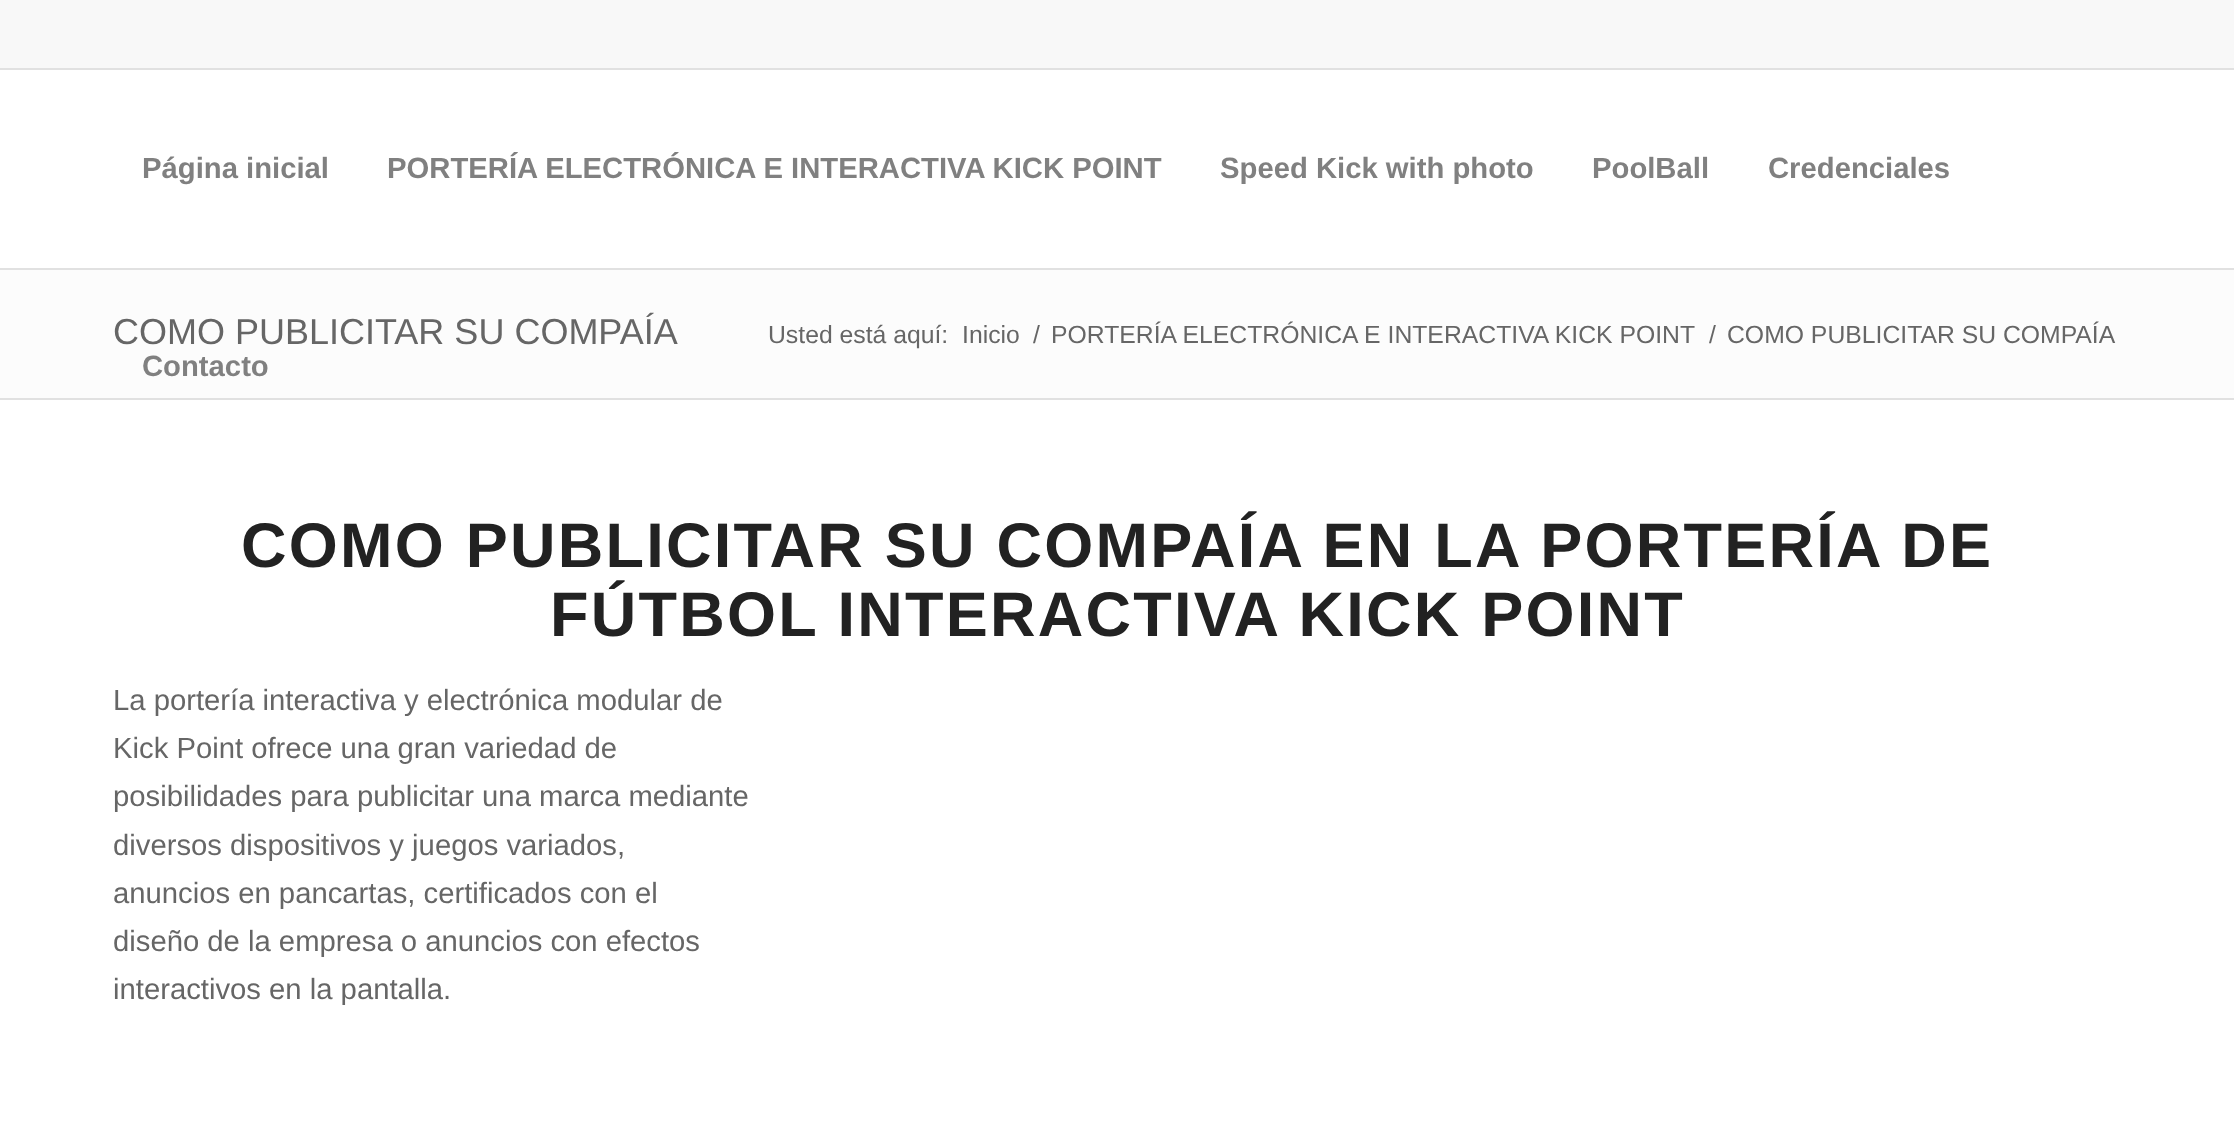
<svg xmlns="http://www.w3.org/2000/svg" width="2234" height="1141">
<style>
.a{font:bold 29.25px Liberation Sans;fill:#808080}
.b{font:36px Liberation Sans;fill:#666}
.c{font:24.75px Liberation Sans;fill:#666}
.d{font:bold 63px Liberation Sans;letter-spacing:2.25px;fill:#222}
.e{font:29.25px Liberation Sans;fill:#666}
</style>
<rect width="100%" height="100%" fill="#fff"/>
<path fill="#f8f8f8" d="M0 0h2234v68H0z"/>
<path fill="#e1e1e1" d="M0 68h2234v2H0z"/>
<path fill="#e1e1e1" d="M0 268h2234v2H0z"/>
<path fill="#fcfcfc" d="M0 270h2234v128H0z"/>
<path fill="#e1e1e1" d="M0 398h2234v2H0z"/>
<text class="a" x="142" y="178">Página inicial</text>
<text class="a" x="387" y="178">PORTERÍA ELECTRÓNICA E INTERACTIVA KICK POINT</text>
<text class="a" x="1220" y="178">Speed Kick with photo</text>
<text class="a" x="1592" y="178">PoolBall</text>
<text class="a" x="1768" y="178">Credenciales</text>
<text class="a" x="142" y="376">Contacto</text>
<text class="b" x="113" y="344">COMO PUBLICITAR SU COMPAÍA</text>
<text class="c" x="768" y="343">Usted está aquí:</text>
<text class="c" x="962" y="343">Inicio</text>
<text class="c" x="1033" y="343">/</text>
<text class="c" x="1051" y="343">PORTERÍA ELECTRÓNICA E INTERACTIVA KICK POINT</text>
<text class="c" x="1709" y="343">/</text>
<text class="c" x="1727" y="343">COMO PUBLICITAR SU COMPAÍA</text>
<text class="d" x="241" y="567">COMO PUBLICITAR SU COMPAÍA EN LA PORTERÍA DE</text>
<text class="d" x="550" y="636">FÚTBOL INTERACTIVA KICK POINT</text>
<text class="e" x="113" y="710">La portería interactiva y electrónica modular de</text>
<text class="e" x="113" y="758">Kick Point ofrece una gran variedad de</text>
<text class="e" x="113" y="806">posibilidades para publicitar una marca mediante</text>
<text class="e" x="113" y="855">diversos dispositivos y juegos variados,</text>
<text class="e" x="113" y="903">anuncios en pancartas, certificados con el</text>
<text class="e" x="113" y="951">diseño de la empresa o anuncios con efectos</text>
<text class="e" x="113" y="999">interactivos en la pantalla.</text>
</svg>
